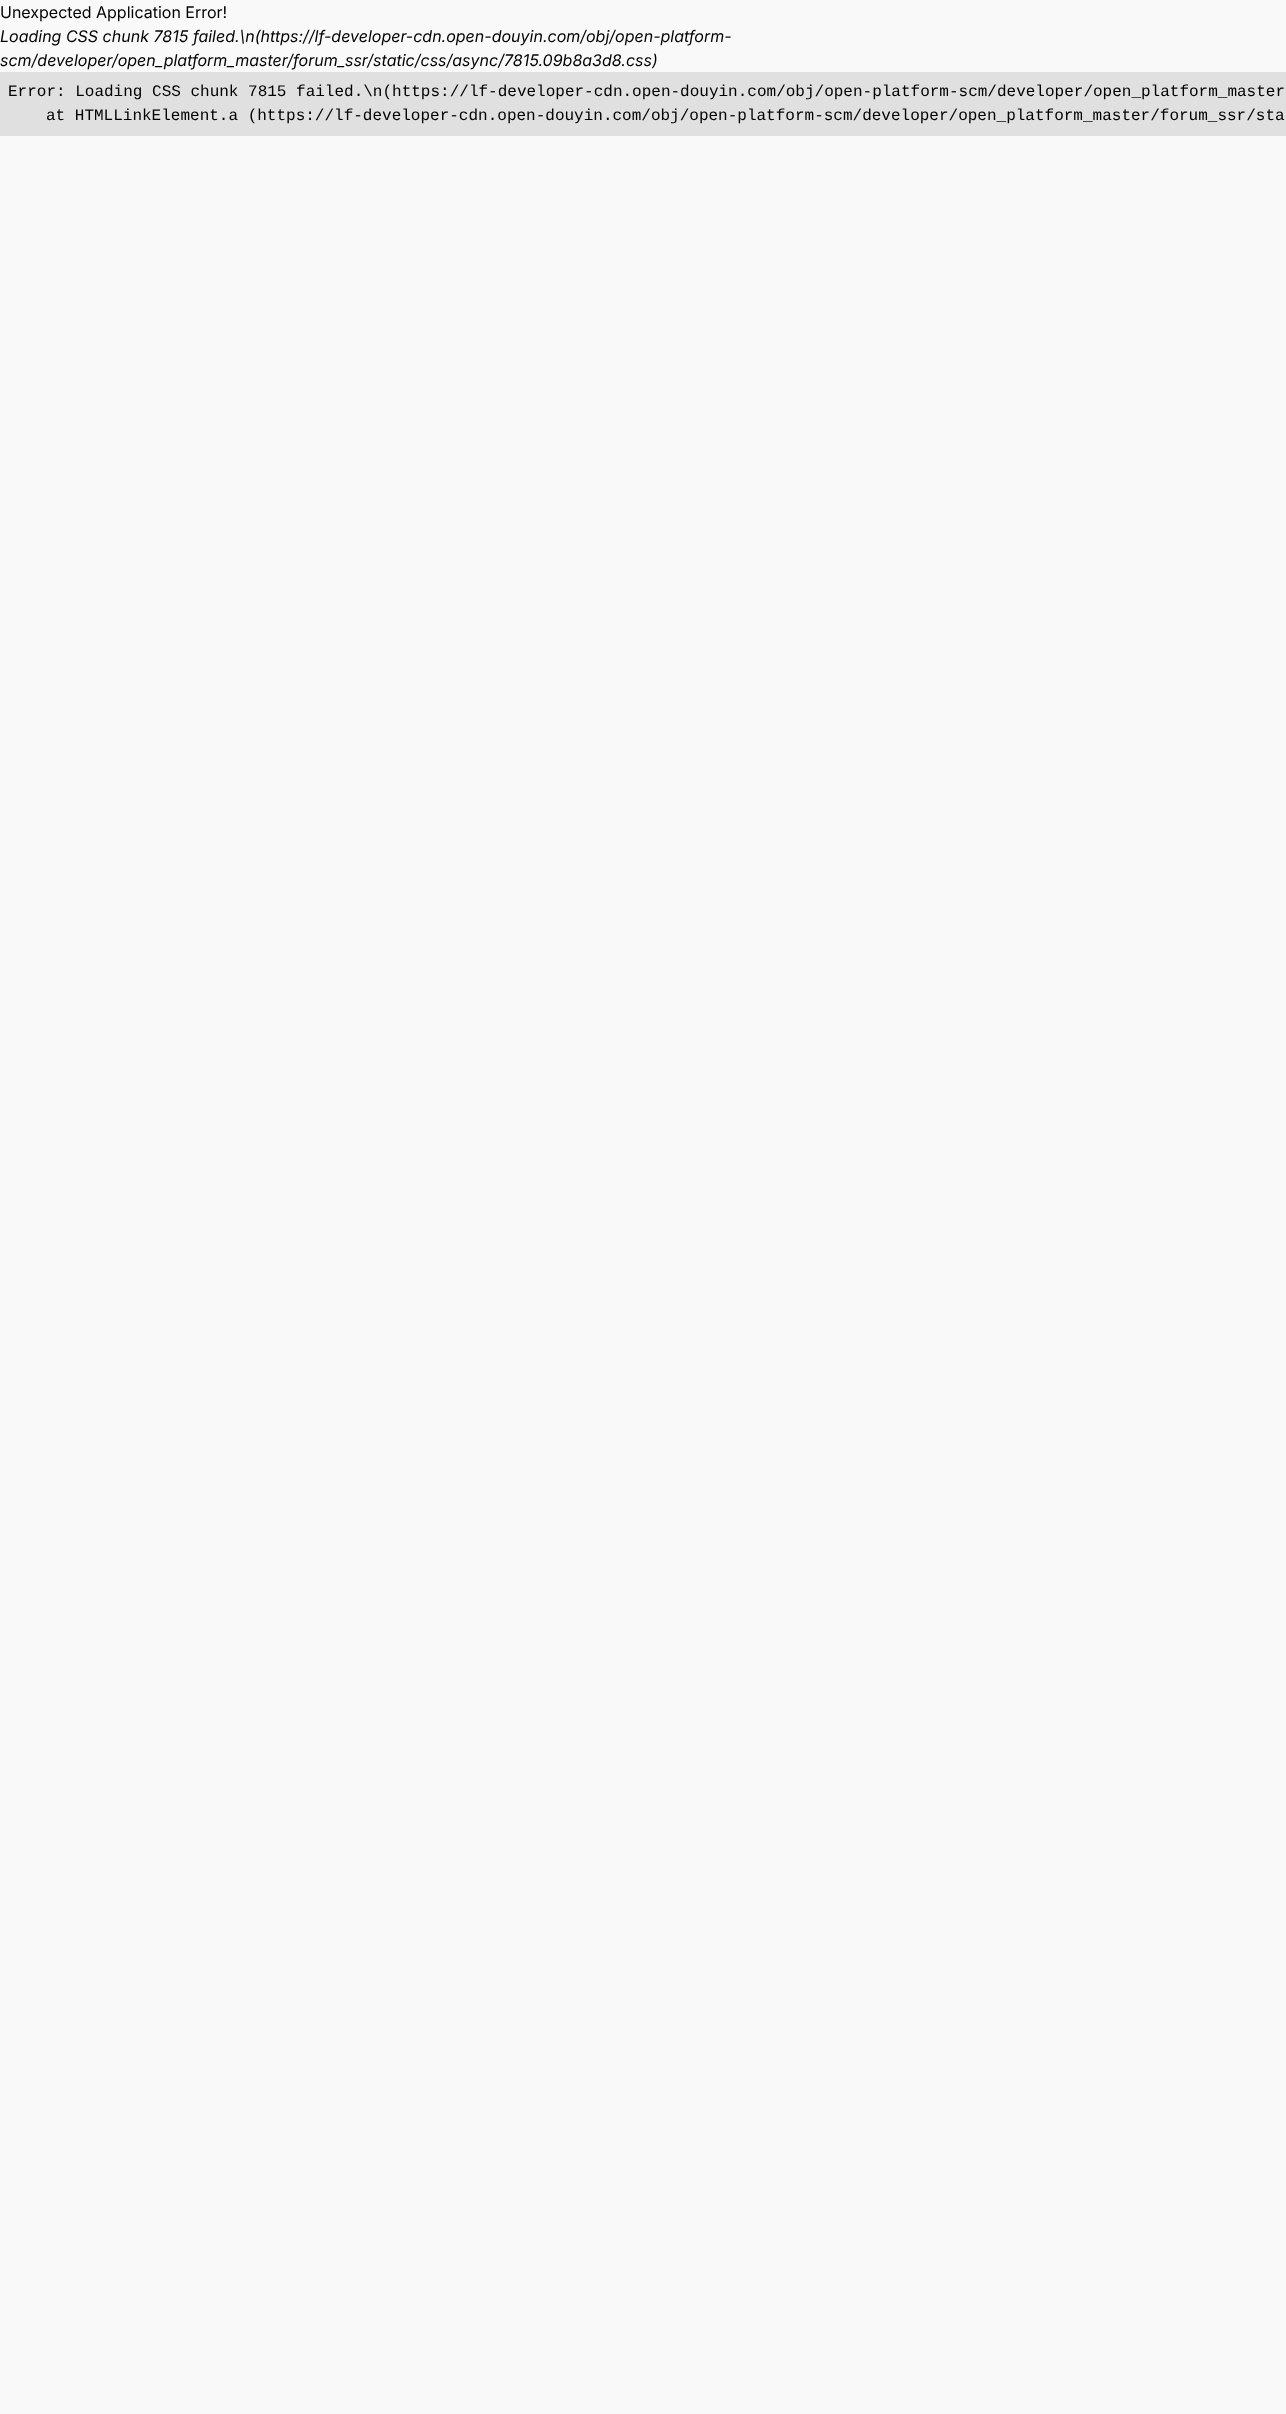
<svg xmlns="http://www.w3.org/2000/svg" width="1286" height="2414">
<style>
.a{font:16px Inter;fill:#000}
.b{font:italic 16px Inter;fill:#000}
.c{font:16px Liberation Mono;fill:#000}
</style>
<rect width="100%" height="100%" fill="#f9f9f9"/>
<path fill="#e0e0e0" d="M0 72h1286v64H0z"/>
<text class="a" x="0" y="18">Unexpected Application Error!</text>
<text class="b" x="0" y="42">Loading CSS chunk 7815 failed.\n(https://lf-developer-cdn.open-douyin.com/obj/open-platform-</text>
<text class="b" x="0" y="66">scm/developer/open_platform_master/forum_ssr/static/css/async/7815.09b8a3d8.css)</text>
<text class="c" x="8" y="96">Error: Loading CSS chunk 7815 failed.\n(https://lf-developer-cdn.open-douyin.com/obj/open-platform-scm/developer/open_platform_master</text>
<text class="c" x="46" y="120">at HTMLLinkElement.a (https://lf-developer-cdn.open-douyin.com/obj/open-platform-scm/developer/open_platform_master/forum_ssr/sta</text>
</svg>
